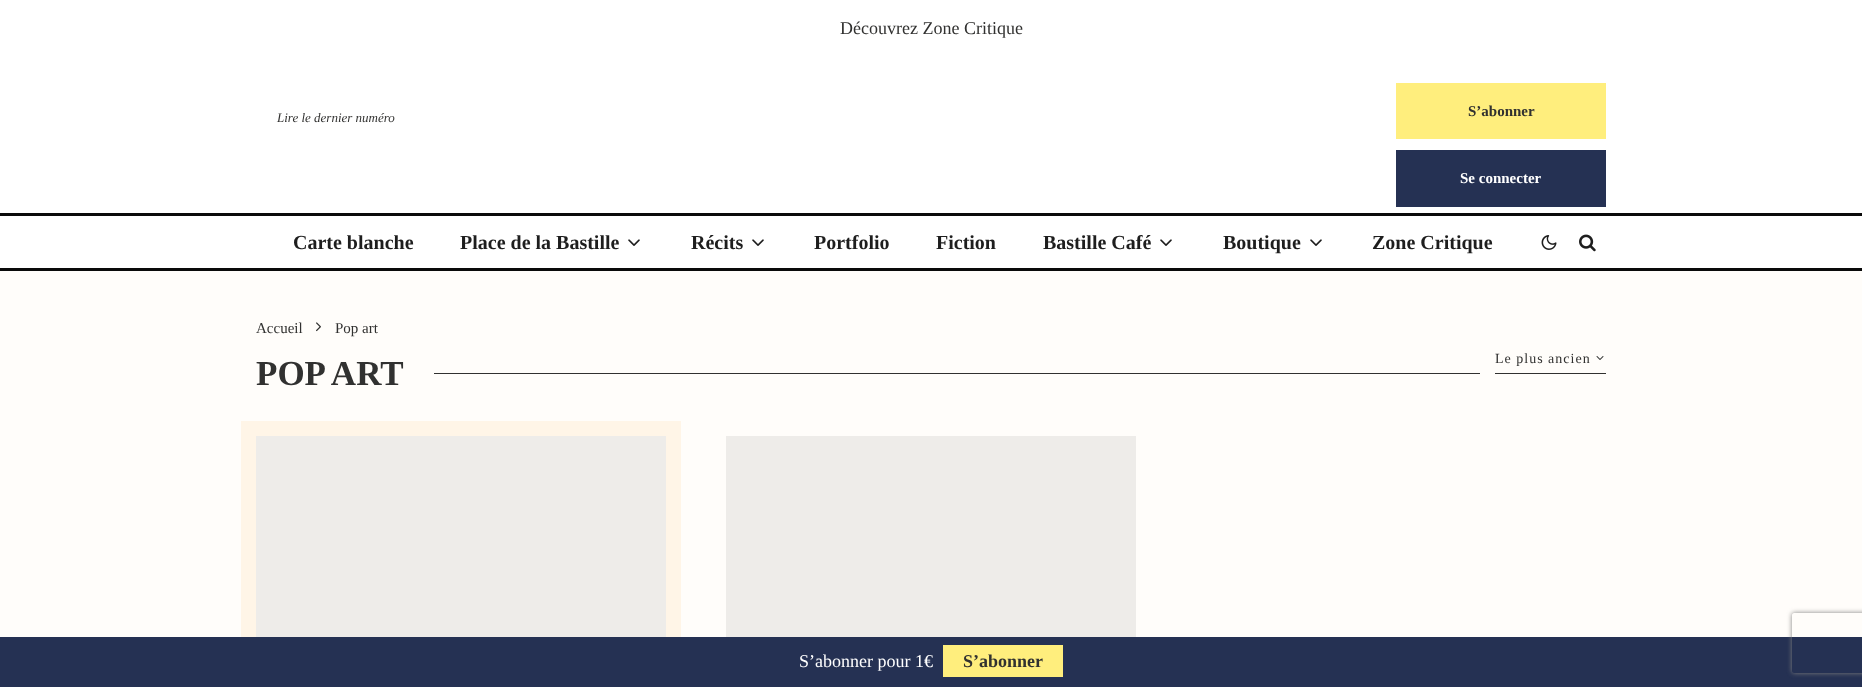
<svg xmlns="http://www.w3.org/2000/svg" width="1862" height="687">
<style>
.a{font:18px Liberation Serif;fill:#313130}
.b{font:italic 13px Liberation Serif;fill:#313130}
.c{font:bold 15px Liberation Serif;fill:#313130}
.d{font:bold 15px Liberation Serif;fill:#fff}
.e{font:bold 20px Liberation Serif;fill:#1e1e1e}
.f{font:15px Liberation Serif;fill:#313130}
.g{font:14px Liberation Serif;letter-spacing:1px;fill:#313130}
.h{font:bold 35px Liberation Serif;fill:#313130}
.i{font:18px Liberation Serif;fill:#fff}
.j{font:bold 18px Liberation Serif;fill:#313130}
</style>
<defs>
<clipPath id="clip1"><path d="M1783 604h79v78h-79zm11 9h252c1 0 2 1 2 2v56c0 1-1 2-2 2h-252c-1 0-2-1-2-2v-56c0-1 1-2 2-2z" clip-rule="evenodd"/></clipPath>
</defs>
<rect width="100%" height="100%" fill="#fff"/>
<path fill="#fffdfa" d="M0 271h1862v366H0z"/>
<path fill="#ffee7d" d="M1396 83h210v56H1396z"/>
<path fill="#253153" d="M1396 150h210v57H1396z"/>
<path fill="#0a0a0a" d="M0 213h1862v3H0z"/>
<path fill="#0a0a0a" d="M0 268h1862v3H0z"/>
<image href="1.png" x="628" y="239" width="12" height="7"/>
<image href="1.png" x="752" y="239" width="12" height="7"/>
<image href="1.png" x="1160" y="239" width="12" height="7"/>
<image href="1.png" x="1310" y="239" width="12" height="7"/>
<image href="2.png" x="1541" y="235" width="16" height="15"/>
<image href="3.png" x="1579" y="234" width="17" height="18"/>
<image href="4.png" x="316" y="322" width="5" height="10"/>
<path fill="#313130" d="M1495 373h111v1H1495z"/>
<image href="5.png" x="1596" y="356" width="8" height="4"/>
<path fill="#313130" d="M434 373h1046v1H434z"/>
<path fill="#fff5e7" d="M241 421h440v216H241z"/>
<path fill="#eeece9" d="M256 436h410v201H256z"/>
<path fill="#eeece9" d="M726 436h410v201H726z"/>
<path fill="#253153" d="M0 637h1862v50H0z"/>
<path fill="#ffee7d" d="M943 645h120v32H943z"/>
<g clip-path="url(#clip1)">
<rect fill="#808080" filter="blur(2.5px)" x="1792" y="613" width="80" height="60" rx="2"/>
</g>
<text class="a" x="840" y="34">Découvrez Zone Critique</text>
<text class="b" x="277" y="122">Lire le dernier numéro</text>
<text class="c" x="1468" y="116">S’abonner</text>
<text class="d" x="1460" y="183">Se connecter</text>
<text class="e" x="293" y="249">Carte blanche</text>
<text class="e" x="460" y="249">Place de la Bastille</text>
<text class="e" x="691" y="249">Récits</text>
<text class="e" x="814" y="249">Portfolio</text>
<text class="e" x="936" y="249">Fiction</text>
<text class="e" x="1043" y="249">Bastille Café</text>
<text class="e" x="1223" y="249">Boutique</text>
<text class="e" x="1372" y="249">Zone Critique</text>
<text class="f" x="256" y="333">Accueil</text>
<text class="f" x="335" y="333">Pop art</text>
<text class="g" x="1495" y="363">Le plus ancien</text>
<text class="h" x="256" y="385">POP ART</text>
<text class="i" x="799" y="667">S’abonner pour 1€</text>
<text class="j" x="963" y="667">S’abonner</text>
</svg>
